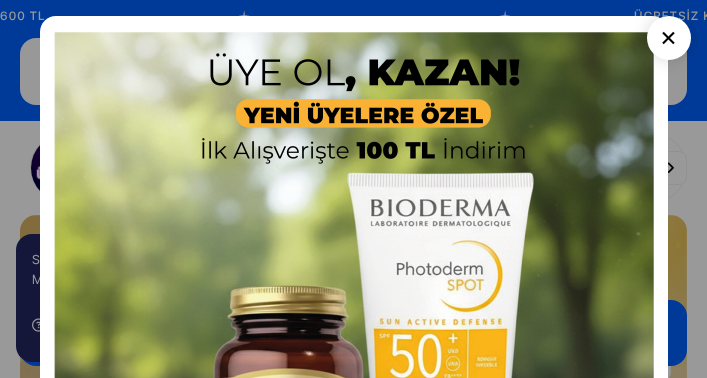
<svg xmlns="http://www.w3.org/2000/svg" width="707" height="378">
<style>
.a{font:500 12px SF Pro Display;letter-spacing:1.25px;fill:#999}
.b{font:13px SF Pro Display;fill:#999}
.c{font:bold 30px Liberation Serif;fill:#000}
</style>
<rect width="100%" height="100%" fill="#999"/>
<path fill="#003a99" d="M0 0h707v121H0z"/>
<image href="1.png" x="238" y="10" width="12" height="6"/>
<image href="1.png" x="499" y="10" width="12" height="6"/>
<rect fill="#989898" x="20" y="38" width="667" height="67" rx="16"/>
<image href="5.png" x="20" y="215" width="667" height="163"/>
<rect fill="#999" stroke="#919191" x="631.5" y="341.5" width="39" height="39" rx="7.5"/>
<rect fill="#003a99" x="20" y="300" width="667" height="66" rx="16"/>
<circle fill="none" stroke="#919191" cx="65" cy="168" r="34.5"/>
<image href="3.png" x="31" y="145" width="9" height="46"/>
<circle fill="none" stroke="#919191" cx="652" cy="168" r="34.5"/>
<rect fill="#999" stroke="#919191" x="653.5" y="151.5" width="33" height="33" rx="7.5"/>
<image href="4.png" x="668" y="162" width="6" height="11"/>
<rect fill="#14173a" x="16" y="234" width="643" height="128" rx="16"/>
<image href="6.png" x="32" y="318" width="8" height="14"/>
<text class="a" x="0" y="20">600 TL</text>
<text class="a" x="634" y="20">ÜCRETSİZ K</text>
<text class="b" x="32" y="264">S</text>
<text class="b" x="32" y="284">M</text>
<path fill="#fff" d="M56 16h596c9 0 16 7 16 16v346h-628v-346c0-9 7-16 16-16z"/>
<image href="2.png" x="54" y="32" width="600" height="346"/>
<rect fill="#00000026" filter="blur(8px)" x="647" y="16" width="44" height="44" rx="22"/>
<circle fill="#fff" cx="669" cy="38" r="22"/>
<text class="c" x="660" y="48">×</text>
</svg>
